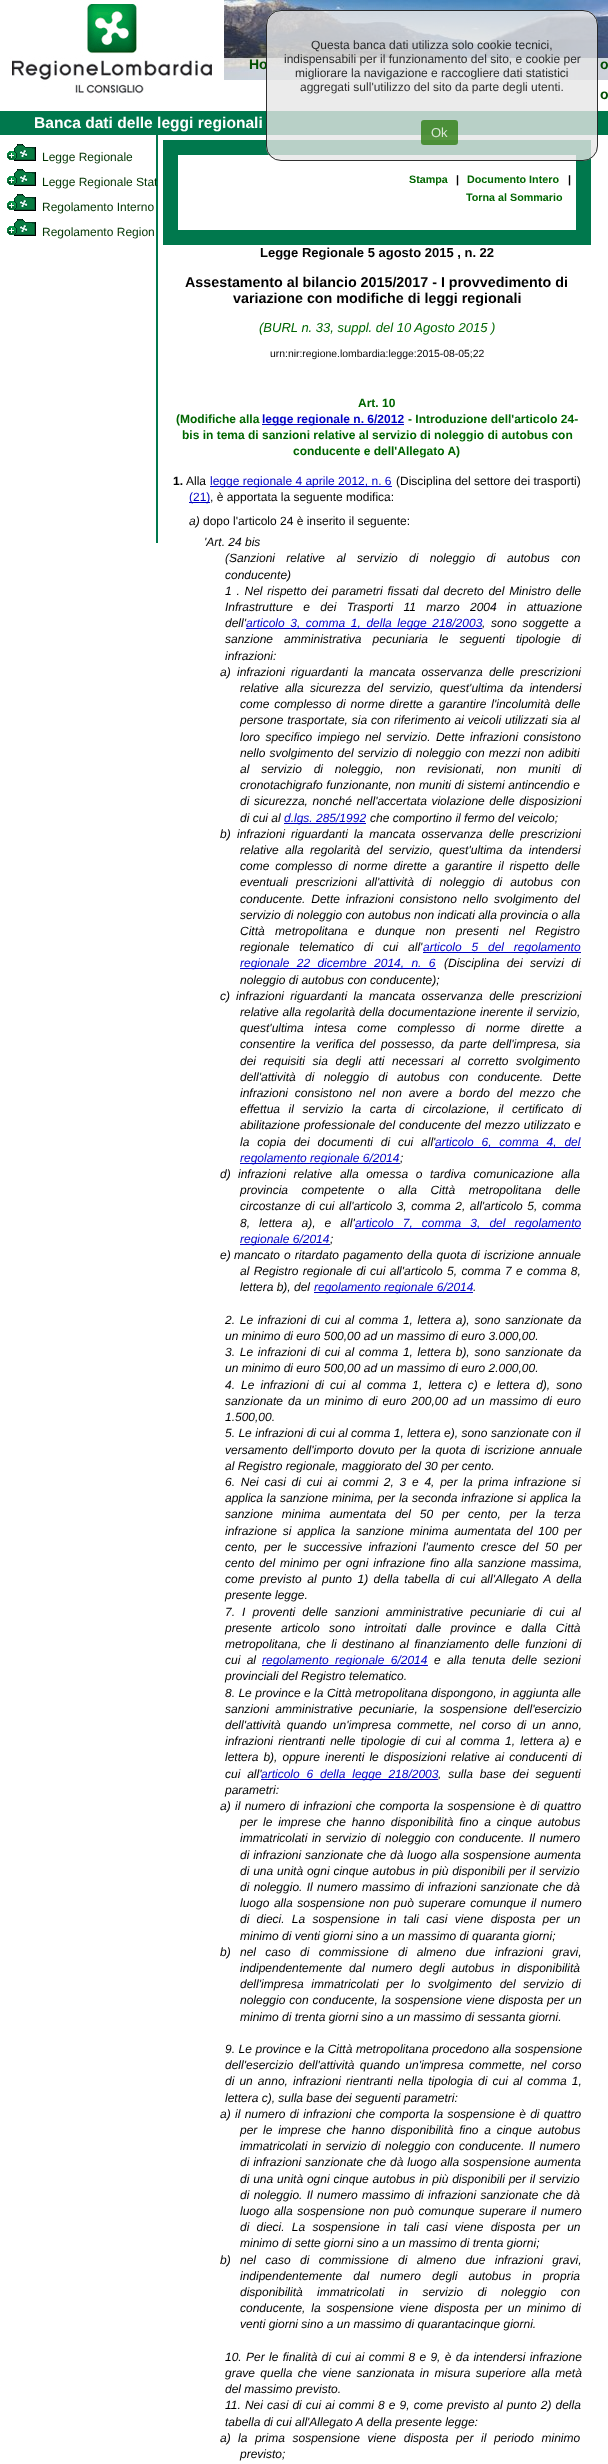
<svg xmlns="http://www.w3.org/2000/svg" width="608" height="2464">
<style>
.a{font:bold 14px Liberation Sans;fill:#004f00}
.b{font:13px Liberation Sans;fill:#dbe9d8}
.c{font:12px Liberation Sans;fill:#2f2f2f}
.d{font:12px Liberation Sans;fill:#28292a}
.e{font:bold 15.6px Liberation Sans;fill:#fff}
.f{font:12px Liberation Sans;fill:#030}
.g{font:bold 10.75px Liberation Sans;fill:#006500}
.h{font:bold 10.75px Liberation Sans;fill:#000}
.i{font:bold 13px Liberation Sans;fill:#000}
.j{font:bold 14.3px Liberation Sans;fill:#000}
.k{font:italic 13px Liberation Sans;fill:#006500}
.l{font:10.4px Liberation Sans;fill:#000}
.m{font:bold 12px Liberation Sans;fill:#006500}
.n{font:bold 12px Liberation Sans;fill:#0000c4}
.o{font:bold 12px Liberation Sans;fill:#000}
.p{font:12px Liberation Sans;fill:#000}
.q{font:12px Liberation Sans;fill:#0000c4}
.r{font:italic 12px Liberation Sans;fill:#000}
.s{font:italic 12px Liberation Sans;fill:#0000c4}
</style>
<rect width="100%" height="100%" fill="#fff"/>
<image href="1.png" x="224" y="0" width="384" height="80"/>
<image href="2.png" x="0" y="0" width="224" height="94"/>
<path fill="#00784d" d="M0 111h608v24H0z"/>
<path fill="#00784d" d="M156 135h2v408H156z"/>
<image href="3.png" x="7" y="144" width="29" height="17"/>
<image href="3.png" x="7" y="169" width="29" height="17"/>
<image href="3.png" x="7" y="194" width="29" height="17"/>
<image href="3.png" x="7" y="219" width="29" height="17"/>
<path fill="#00784d" d="M163 140h428v105H163z"/>
<path fill="#fff" d="M178 155h398v75H178z"/>
<path fill="#0000c4" d="M262 424h142v1H262z"/>
<path fill="#0000c4" d="M210 486h182v1H210z"/>
<path fill="#0000c4" d="M189 502h21v1H189z"/>
<path fill="#0000c4" d="M246 628h236v1H246z"/>
<path fill="#0000c4" d="M284 823h82v1H284z"/>
<path fill="#0000c4" d="M240 968h196v1H240z"/>
<path fill="#0000c4" d="M240 1163h160v1H240z"/>
<path fill="#0000c4" d="M240 1244h90v1H240z"/>
<path fill="#0000c4" d="M314 1292h159v1H314z"/>
<path fill="#0000c4" d="M262 1665h166v1H262z"/>
<path fill="#0000c4" d="M261 1779h177v1H261z"/>
<text class="a" x="249" y="69">Ho</text>
<rect fill="#e6e6e6cc" x="266" y="10" width="332" height="151" rx="15"/>
<rect fill="none" stroke="#000000cc" x="266.5" y="10.5" width="331" height="150" rx="14.5"/>
<rect fill="#2f7e14cc" x="421" y="120" width="37" height="25" rx="3"/>
<text class="b" x="431" y="137">Ok</text>
<text class="c" x="300" y="91">aggregati sull'utilizzo del sito da parte degli utenti.</text>
<text class="d" x="295" y="77">migliorare la navigazione e raccogliere dati statistici</text>
<text class="d" x="284" y="63">indispensabili per il funzionamento del sito, e cookie per</text>
<text class="d" x="311" y="49">Questa banca dati utilizza solo cookie tecnici,</text>
<text class="a" x="600" y="69">o</text>
<text class="a" x="600" y="99">o</text>
<text class="e" x="34" y="128">Banca dati delle leggi regionali</text>
<text class="f" x="42" y="161">Legge Regionale</text>
<text class="f" x="42" y="186">Legge Regionale Stat</text>
<text class="f" x="42" y="211">Regolamento Interno</text>
<text class="f" x="42" y="236">Regolamento Region</text>
<text class="g" x="409" y="183">Stampa</text>
<text class="h" x="456" y="183">|</text>
<text class="g" x="467" y="183">Documento Intero</text>
<text class="h" x="568" y="183">|</text>
<text class="g" x="466" y="201">Torna al Sommario</text>
<text class="i" x="260" y="257">Legge Regionale 5 agosto 2015 , n. 22</text>
<text class="j" x="185" y="287">Assestamento al bilancio 2015/2017 - I provvedimento di</text>
<text class="j" x="233" y="303">variazione con modifiche di leggi regionali</text>
<text class="k" x="259" y="332">(BURL n. 33, suppl. del 10 Agosto 2015 )</text>
<text class="l" x="270" y="357">urn:nir:regione.lombardia:legge:2015-08-05;22</text>
<text class="m" x="358" y="407">Art. 10</text>
<text class="m" x="176" y="423">(Modifiche alla</text>
<text class="n" x="262" y="423">legge regionale n. 6/2012</text>
<text class="m" x="408" y="423">- Introduzione dell'articolo 24-</text>
<text class="m" x="182" y="439">bis in tema di sanzioni relative al servizio di noleggio di autobus con</text>
<text class="m" x="293" y="455">conducente e dell'Allegato A)</text>
<text class="o" x="173" y="485">1.</text>
<text class="p" x="186" y="485">Alla</text>
<text class="q" x="210" y="485">legge regionale 4 aprile 2012, n. 6</text>
<text class="p" x="396" y="485">(Disciplina del settore dei trasporti)</text>
<text class="q" x="189" y="501">(21)</text>
<text class="p" x="210" y="501">, è apportata la seguente modifica:</text>
<text class="r" x="189" y="525">a)</text>
<text class="p" x="203" y="525">dopo l'articolo 24 è inserito il seguente:</text>
<text class="r" x="204" y="546">'Art. 24 bis</text>
<text class="r" x="225" y="562" word-spacing="8">(Sanzioni relative al servizio di noleggio di autobus con</text>
<text class="r" x="225" y="579">conducente)</text>
<text class="r" x="225" y="595" word-spacing="1.4">1 . Nel rispetto dei parametri fissati dal decreto del Ministro delle</text>
<text class="r" x="225" y="611" word-spacing="7">Infrastrutture e dei Trasporti 11 marzo 2004 in attuazione</text>
<text class="r" x="225" y="627">dell'</text>
<text class="s" x="246" y="627" word-spacing="2.25">articolo 3, comma 1, della legge 218/2003</text>
<text class="r" x="482" y="627" word-spacing="2.25">, sono soggette a</text>
<text class="r" x="225" y="643" word-spacing="7.75">sanzione amministrativa pecuniaria le seguenti tipologie di</text>
<text class="r" x="225" y="660">infrazioni:</text>
<text class="r" x="220" y="676">a)</text>
<text class="r" x="237" y="676" word-spacing="2.75">infrazioni riguardanti la mancata osservanza delle prescrizioni</text>
<text class="r" x="240" y="692" word-spacing="3">relative alla sicurezza del servizio, quest'ultima da intendersi</text>
<text class="r" x="240" y="708" word-spacing="1.5">come complesso di norme dirette a garantire l'incolumità delle</text>
<text class="r" x="240" y="724" word-spacing="0.5">persone trasportate, sia con riferimento ai veicoli utilizzati sia al</text>
<text class="r" x="240" y="741" word-spacing="2.1">loro specifico impiego nel servizio. Dette infrazioni consistono</text>
<text class="r" x="240" y="757" word-spacing="0.75">nello svolgimento del servizio di noleggio con mezzi non adibiti</text>
<text class="r" x="240" y="773" word-spacing="8.5">al servizio di noleggio, non revisionati, non muniti di</text>
<text class="r" x="240" y="789" word-spacing="0.25">cronotachigrafo funzionante, non muniti di sistemi antincendio e</text>
<text class="r" x="240" y="805" word-spacing="1.25">di sicurezza, nonché nell'accertata violazione delle disposizioni</text>
<text class="r" x="240" y="822">di cui al</text>
<text class="s" x="284" y="822">d.lgs. 285/1992</text>
<text class="r" x="370" y="822">che comportino il fermo del veicolo;</text>
<text class="r" x="220" y="838">b)</text>
<text class="r" x="237" y="838" word-spacing="2.75">infrazioni riguardanti la mancata osservanza delle prescrizioni</text>
<text class="r" x="240" y="854" word-spacing="3">relative alla regolarità del servizio, quest'ultima da intendersi</text>
<text class="r" x="240" y="870" word-spacing="2.5">come complesso di norme dirette a garantire il rispetto delle</text>
<text class="r" x="240" y="886" word-spacing="4.75">eventuali prescrizioni all'attività di noleggio di autobus con</text>
<text class="r" x="240" y="903" word-spacing="2.5">conducente. Dette infrazioni consistono nello svolgimento del</text>
<text class="r" x="240" y="919">servizio di noleggio con autobus non indicati alla provincia o alla</text>
<text class="r" x="240" y="935" word-spacing="7">Città metropolitana e dunque non presenti nel Registro</text>
<text class="r" x="240" y="951" word-spacing="6.5">regionale telematico di cui all'</text>
<path fill="#0000c4" d="M423 952h158v1H423z"/>
<text class="s" x="423" y="951" word-spacing="6.5">articolo 5 del regolamento</text>
<text class="s" x="240" y="967" word-spacing="4">regionale 22 dicembre 2014, n. 6</text>
<text class="r" x="444" y="967" word-spacing="4">(Disciplina dei servizi di</text>
<text class="r" x="240" y="984">noleggio di autobus con conducente);</text>
<text class="r" x="220" y="1000">c)</text>
<text class="r" x="236" y="1000" word-spacing="3">infrazioni riguardanti la mancata osservanza delle prescrizioni</text>
<text class="r" x="240" y="1016" word-spacing="0.5">relative alla regolarità della documentazione inerente il servizio,</text>
<text class="r" x="240" y="1032" word-spacing="7.5">quest'ultima intesa come complesso di norme dirette a</text>
<text class="r" x="240" y="1048" word-spacing="2.25">consentire la verifica del possesso, da parte dell'impresa, sia</text>
<text class="r" x="240" y="1065" word-spacing="4.25">dei requisiti sia degli atti necessari al corretto svolgimento</text>
<text class="r" x="240" y="1081" word-spacing="6">dell'attività di noleggio di autobus con conducente. Dette</text>
<text class="r" x="240" y="1097" word-spacing="3.5">infrazioni consistono nel non avere a bordo del mezzo che</text>
<text class="r" x="240" y="1113" word-spacing="5.25">effettua il servizio la carta di circolazione, il certificato di</text>
<text class="r" x="240" y="1129" word-spacing="0.5">abilitazione professionale del conducente del mezzo utilizzato e</text>
<text class="r" x="240" y="1146" word-spacing="4.5">la copia dei documenti di cui all'</text>
<path fill="#0000c4" d="M435 1147h146v1H435z"/>
<text class="s" x="435" y="1146" word-spacing="4.5">articolo 6, comma 4, del</text>
<text class="s" x="240" y="1162">regolamento regionale 6/2014</text>
<text class="r" x="400" y="1162">;</text>
<text class="r" x="220" y="1178">d)</text>
<text class="r" x="238" y="1178" word-spacing="4.25">infrazioni relative alla omessa o tardiva comunicazione alla</text>
<text class="r" x="240" y="1194" word-spacing="10.25">provincia competente o alla Città metropolitana delle</text>
<text class="r" x="240" y="1210" word-spacing="1.25">circostanze di cui all'articolo 3, comma 2, all'articolo 5, comma</text>
<text class="r" x="240" y="1227" word-spacing="5.75">8, lettera a), e all'</text>
<path fill="#0000c4" d="M355 1228h226v1H355z"/>
<text class="s" x="355" y="1227" word-spacing="5.75">articolo 7, comma 3, del regolamento</text>
<text class="s" x="240" y="1243">regionale 6/2014</text>
<text class="r" x="330" y="1243">;</text>
<text class="r" x="220" y="1259">e)</text>
<text class="r" x="234" y="1259" word-spacing="0.75">mancato o ritardato pagamento della quota di iscrizione annuale</text>
<text class="r" x="240" y="1275" word-spacing="1">al Registro regionale di cui all'articolo 5, comma 7 e comma 8,</text>
<text class="r" x="240" y="1291">lettera b), del</text>
<text class="s" x="314" y="1291">regolamento regionale 6/2014</text>
<text class="r" x="473" y="1291">.</text>
<text class="r" x="225" y="1324" word-spacing="1.4">2. Le infrazioni di cui al comma 1, lettera a), sono sanzionate da</text>
<text class="r" x="225" y="1340">un minimo di euro 500,00 ad un massimo di euro 3.000,00.</text>
<text class="r" x="225" y="1356" word-spacing="1.4">3. Le infrazioni di cui al comma 1, lettera b), sono sanzionate da</text>
<text class="r" x="225" y="1372">un minimo di euro 500,00 ad un massimo di euro 2.000,00.</text>
<text class="r" x="225" y="1389" word-spacing="2.75">4. Le infrazioni di cui al comma 1, lettera c) e lettera d), sono</text>
<text class="r" x="225" y="1405" word-spacing="1.6">sanzionate da un minimo di euro 200,00 ad un massimo di euro</text>
<text class="r" x="225" y="1421">1.500,00.</text>
<text class="r" x="225" y="1437" word-spacing="0.1">5. Le infrazioni di cui al comma 1, lettera e), sono sanzionate con il</text>
<text class="r" x="225" y="1454" word-spacing="1.5">versamento dell'importo dovuto per la quota di iscrizione annuale</text>
<text class="r" x="225" y="1470">al Registro regionale, maggiorato del 30 per cento.</text>
<text class="r" x="225" y="1486" word-spacing="2.4">6. Nei casi di cui ai commi 2, 3 e 4, per la prima infrazione si</text>
<text class="r" x="225" y="1502" word-spacing="0.5">applica la sanzione minima, per la seconda infrazione si applica la</text>
<text class="r" x="225" y="1518" word-spacing="5.5">sanzione minima aumentata del 50 per cento, per la terza</text>
<text class="r" x="225" y="1535" word-spacing="2.4">infrazione si applica la sanzione minima aumentata del 100 per</text>
<text class="r" x="225" y="1551" word-spacing="3">cento, per le successive infrazioni l'aumento cresce del 50 per</text>
<text class="r" x="225" y="1567" word-spacing="1.5">cento del minimo per ogni infrazione fino alla sanzione massima,</text>
<text class="r" x="225" y="1583" word-spacing="2.1">come previsto al punto 1) della tabella di cui all'Allegato A della</text>
<text class="r" x="225" y="1599">presente legge.</text>
<text class="r" x="225" y="1616" word-spacing="3.75">7. I proventi delle sanzioni amministrative pecuniarie di cui al</text>
<text class="r" x="225" y="1632" word-spacing="6">presente articolo sono introitati dalle province e dalla Città</text>
<text class="r" x="225" y="1648" word-spacing="2.1">metropolitana, che li destinano al finanziamento delle funzioni di</text>
<text class="r" x="225" y="1664" word-spacing="3">cui al</text>
<text class="s" x="262" y="1664" word-spacing="3">regolamento regionale 6/2014</text>
<text class="r" x="434" y="1664" word-spacing="3">e alla tenuta delle sezioni</text>
<text class="r" x="225" y="1680">provinciali del Registro telematico.</text>
<text class="r" x="225" y="1697" word-spacing="0.1">8. Le province e la Città metropolitana dispongono, in aggiunta alle</text>
<text class="r" x="225" y="1713" word-spacing="3">sanzioni amministrative pecuniarie, la sospensione dell'esercizio</text>
<text class="r" x="225" y="1729" word-spacing="2.75">dell'attività quando un'impresa commette, nel corso di un anno,</text>
<text class="r" x="225" y="1745" word-spacing="1.9">infrazioni rientranti nelle tipologie di cui al comma 1, lettera a) e</text>
<text class="r" x="225" y="1761" word-spacing="1.75">lettera b), oppure inerenti le disposizioni relative ai conducenti di</text>
<text class="r" x="225" y="1778" word-spacing="3.5">cui all'</text>
<text class="s" x="261" y="1778" word-spacing="3.5">articolo 6 della legge 218/2003</text>
<text class="r" x="438" y="1778" word-spacing="3.5">, sulla base dei seguenti</text>
<text class="r" x="225" y="1794">parametri:</text>
<text class="r" x="220" y="1810">a)</text>
<text class="r" x="235" y="1810" word-spacing="1">il numero di infrazioni che comporta la sospensione è di quattro</text>
<text class="r" x="240" y="1826" word-spacing="2.4">per le imprese che hanno disponibilità fino a cinque autobus</text>
<text class="r" x="240" y="1842" word-spacing="1.25">immatricolati in servizio di noleggio con conducente. Il numero</text>
<text class="r" x="240" y="1859" word-spacing="0.5">di infrazioni sanzionate che dà luogo alla sospensione aumenta</text>
<text class="r" x="240" y="1875" word-spacing="0.5">di una unità ogni cinque autobus in più disponibili per il servizio</text>
<text class="r" x="240" y="1891" word-spacing="1">di noleggio. Il numero massimo di infrazioni sanzionate che dà</text>
<text class="r" x="240" y="1907" word-spacing="1.25">luogo alla sospensione non può superare comunque il numero</text>
<text class="r" x="240" y="1923" word-spacing="3.9">di dieci. La sospensione in tali casi viene disposta per un</text>
<text class="r" x="240" y="1940">minimo di venti giorni sino a un massimo di quaranta giorni;</text>
<text class="r" x="220" y="1956">b)</text>
<text class="r" x="240" y="1956" word-spacing="6">nel caso di commissione di almeno due infrazioni gravi,</text>
<text class="r" x="240" y="1972" word-spacing="3.5">indipendentemente dal numero degli autobus in disponibilità</text>
<text class="r" x="240" y="1988" word-spacing="4.25">dell'impresa immatricolati per lo svolgimento del servizio di</text>
<text class="r" x="240" y="2004" word-spacing="0.5">noleggio con conducente, la sospensione viene disposta per un</text>
<text class="r" x="240" y="2021">minimo di trenta giorni sino a un massimo di sessanta giorni.</text>
<text class="r" x="225" y="2053" word-spacing="0.25">9. Le province e la Città metropolitana procedono alla sospensione</text>
<text class="r" x="225" y="2069" word-spacing="2.1">dell'esercizio dell'attività quando un'impresa commette, nel corso</text>
<text class="r" x="225" y="2085" word-spacing="1.75">di un anno, infrazioni rientranti nella tipologia di cui al comma 1,</text>
<text class="r" x="225" y="2102">lettera c), sulla base dei seguenti parametri:</text>
<text class="r" x="220" y="2118">a)</text>
<text class="r" x="235" y="2118" word-spacing="1">il numero di infrazioni che comporta la sospensione è di quattro</text>
<text class="r" x="240" y="2134" word-spacing="2.4">per le imprese che hanno disponibilità fino a cinque autobus</text>
<text class="r" x="240" y="2150" word-spacing="1.25">immatricolati in servizio di noleggio con conducente. Il numero</text>
<text class="r" x="240" y="2166" word-spacing="0.5">di infrazioni sanzionate che dà luogo alla sospensione aumenta</text>
<text class="r" x="240" y="2183" word-spacing="0.5">di una unità ogni cinque autobus in più disponibili per il servizio</text>
<text class="r" x="240" y="2199" word-spacing="1">di noleggio. Il numero massimo di infrazioni sanzionate che dà</text>
<text class="r" x="240" y="2215" word-spacing="1.25">luogo alla sospensione non può comunque superare il numero</text>
<text class="r" x="240" y="2231" word-spacing="3.9">di dieci. La sospensione in tali casi viene disposta per un</text>
<text class="r" x="240" y="2247">minimo di sette giorni sino a un massimo di trenta giorni;</text>
<text class="r" x="220" y="2264">b)</text>
<text class="r" x="240" y="2264" word-spacing="6">nel caso di commissione di almeno due infrazioni gravi,</text>
<text class="r" x="240" y="2280" word-spacing="7.75">indipendentemente dal numero degli autobus in propria</text>
<text class="r" x="240" y="2296" word-spacing="11">disponibilità immatricolati in servizio di noleggio con</text>
<text class="r" x="240" y="2312" word-spacing="2.5">conducente, la sospensione viene disposta per un minimo di</text>
<text class="r" x="240" y="2328">venti giorni sino a un massimo di quarantacinque giorni.</text>
<text class="r" x="225" y="2361" word-spacing="1">10. Per le finalità di cui ai commi 8 e 9, è da intendersi infrazione</text>
<text class="r" x="225" y="2377" word-spacing="2">grave quella che viene sanzionata in misura superiore alla metà</text>
<text class="r" x="225" y="2393">del massimo previsto.</text>
<text class="r" x="225" y="2409" word-spacing="0.75">11. Nei casi di cui ai commi 8 e 9, come previsto al punto 2) della</text>
<text class="r" x="225" y="2426">tabella di cui all'Allegato A della presente legge:</text>
<text class="r" x="220" y="2442">a)</text>
<text class="r" x="238" y="2442" word-spacing="4.25">la prima sospensione viene disposta per il periodo minimo</text>
<text class="r" x="240" y="2458">previsto;</text>
</svg>
